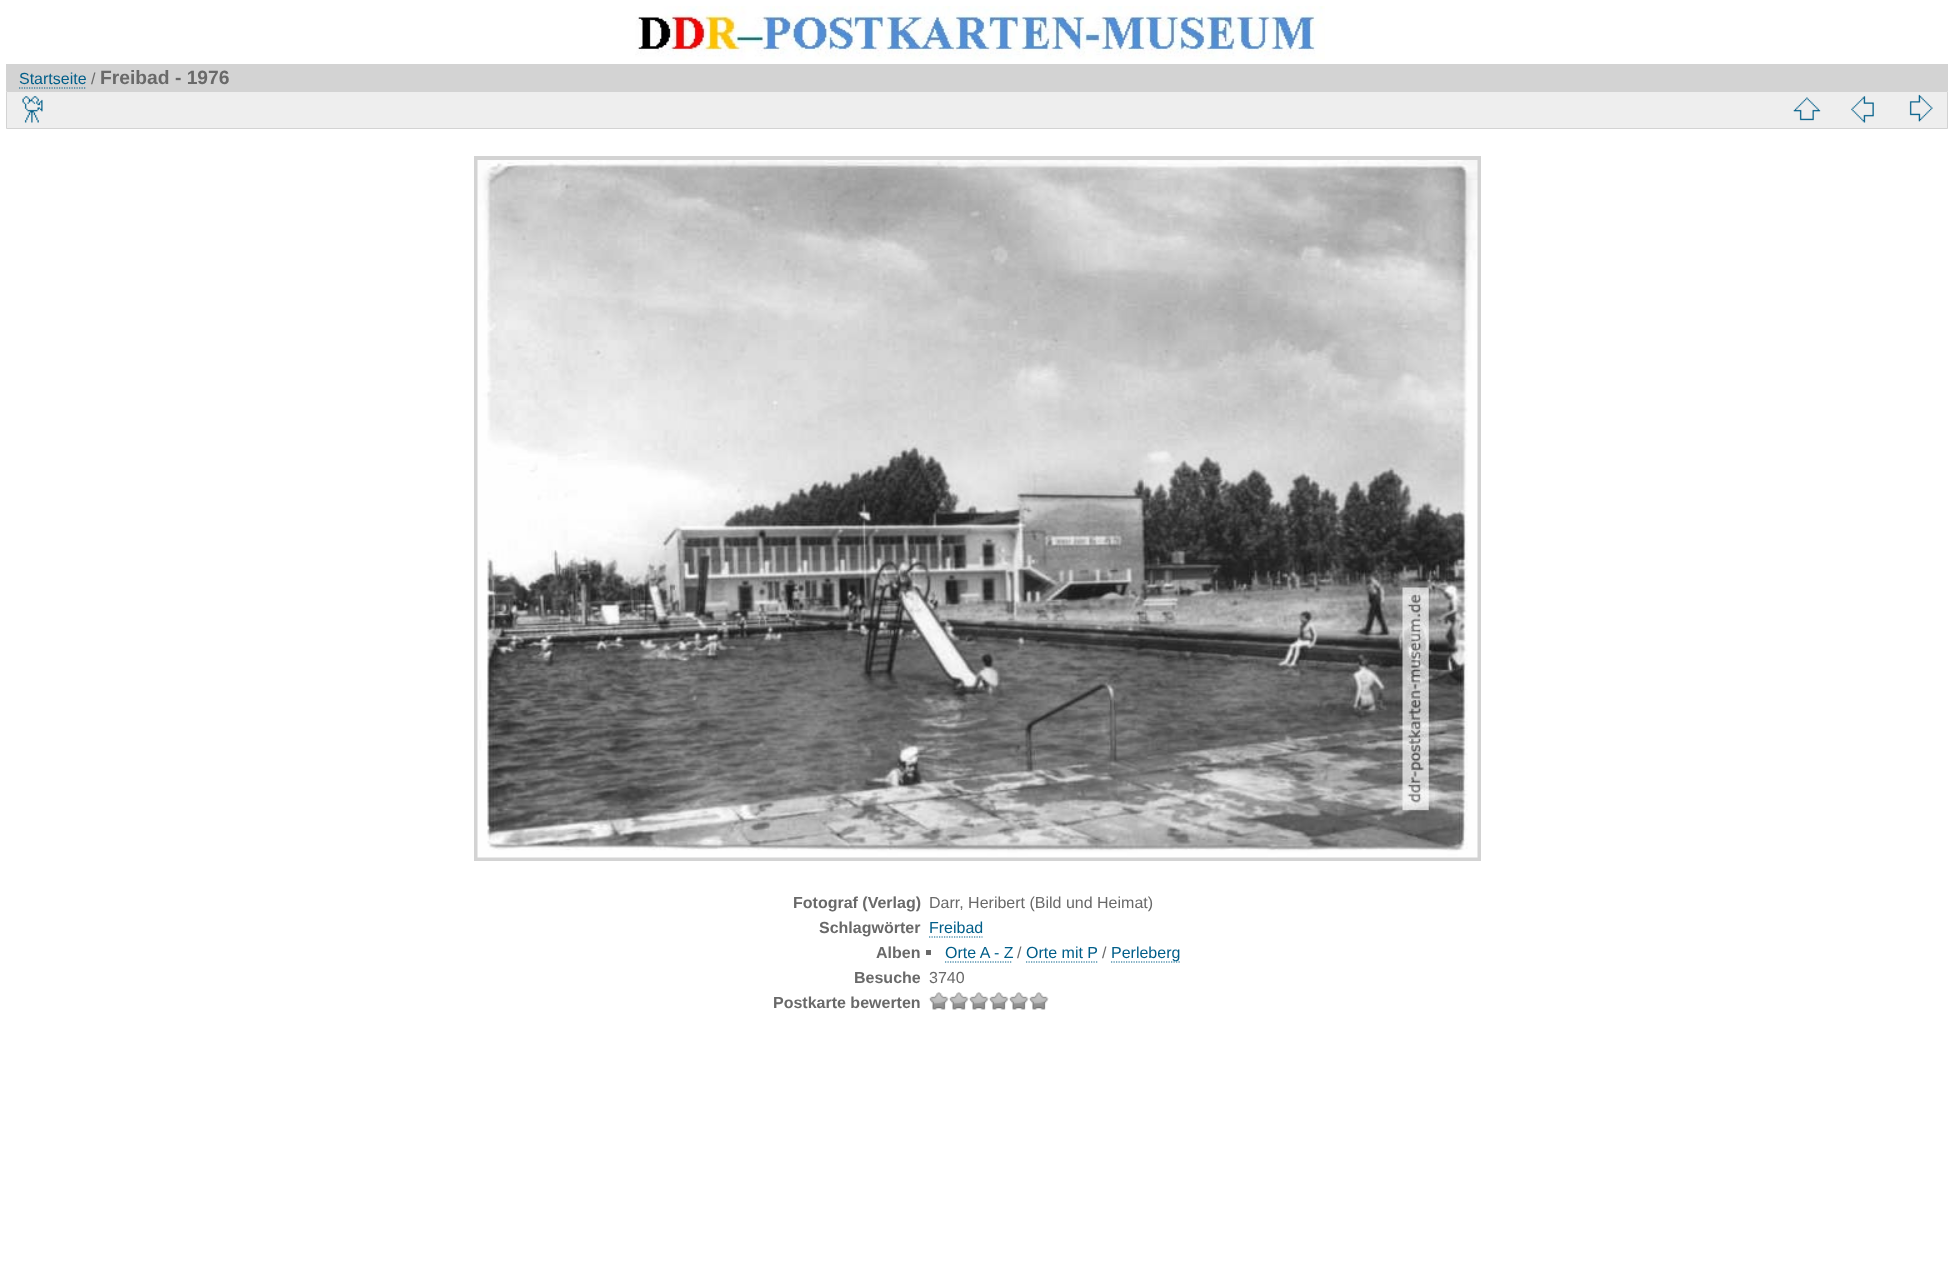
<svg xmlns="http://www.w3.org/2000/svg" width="1953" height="1288">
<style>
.a{font:16px Liberation Sans;fill:#005e89}
.b{font:16px Liberation Sans;fill:#696969}
.c{font:bold 19.25px Liberation Sans;fill:#696969}
.d{font:bold 16px Liberation Sans;fill:#696969}
</style>
<rect width="100%" height="100%" fill="#fff"/>
<image href="1.png" x="635" y="6" width="690" height="54"/>
<path fill="#d3d3d3" d="M6 64h1942v27H6z"/>
<path fill="none" stroke="#005e89" stroke-width="1.2" stroke-dasharray="1.25 1.25" d="M19 88h67"/>
<path fill="#eee" stroke="#d3d3d3" d="M6.5 91.5h1941v37H6.5z"/>
<image href="2.png" x="22" y="96" width="21" height="27"/>
<image href="3.png" x="1793" y="97" width="28" height="24"/>
<image href="4.png" x="1851" y="96" width="23" height="27"/>
<image href="5.png" x="1909" y="94" width="24" height="28"/>
<path fill="none" stroke="#d3d3d3" stroke-width="4" d="M476 158h1003v701H476z"/>
<image href="6.png" x="477" y="160" width="1001" height="698"/>
<path fill="none" stroke="#005e89" stroke-width="1.2" stroke-dasharray="1.25 1.25" d="M929 937h53.5"/>
<path fill="#696969" d="M926 950h5v5H926z"/>
<path fill="none" stroke="#005e89" stroke-width="1.2" stroke-dasharray="1.25 1.25" d="M945 962h67.5"/>
<path fill="none" stroke="#005e89" stroke-width="1.2" stroke-dasharray="1.25 1.25" d="M1026 962h71.5"/>
<path fill="none" stroke="#005e89" stroke-width="1.2" stroke-dasharray="1.25 1.25" d="M1111 962h70"/>
<image href="7.png" x="928" y="992" width="21" height="18"/>
<image href="8.png" x="949" y="992" width="20" height="18"/>
<image href="8.png" x="969" y="992" width="20" height="18"/>
<image href="8.png" x="989" y="992" width="20" height="18"/>
<image href="9.png" x="1009" y="992" width="20" height="18"/>
<image href="10.png" x="1029" y="992" width="20" height="18"/>
<text class="a" x="19" y="84">Startseite</text>
<text class="b" x="91" y="84">/</text>
<text class="c" x="100" y="84">Freibad - 1976</text>
<text class="d" x="793" y="908">Fotograf (Verlag)</text>
<text class="b" x="929" y="908">Darr, Heribert (Bild und Heimat)</text>
<text class="d" x="819" y="933">Schlagwörter</text>
<text class="a" x="929" y="933">Freibad</text>
<text class="d" x="876" y="958">Alben</text>
<text class="a" x="945" y="958">Orte A - Z</text>
<text class="b" x="1017" y="958">/</text>
<text class="a" x="1026" y="958">Orte mit P</text>
<text class="b" x="1102" y="958">/</text>
<text class="a" x="1111" y="958">Perleberg</text>
<text class="d" x="854" y="983">Besuche</text>
<text class="b" x="929" y="983">3740</text>
<text class="d" x="773" y="1008">Postkarte bewerten</text>
</svg>
